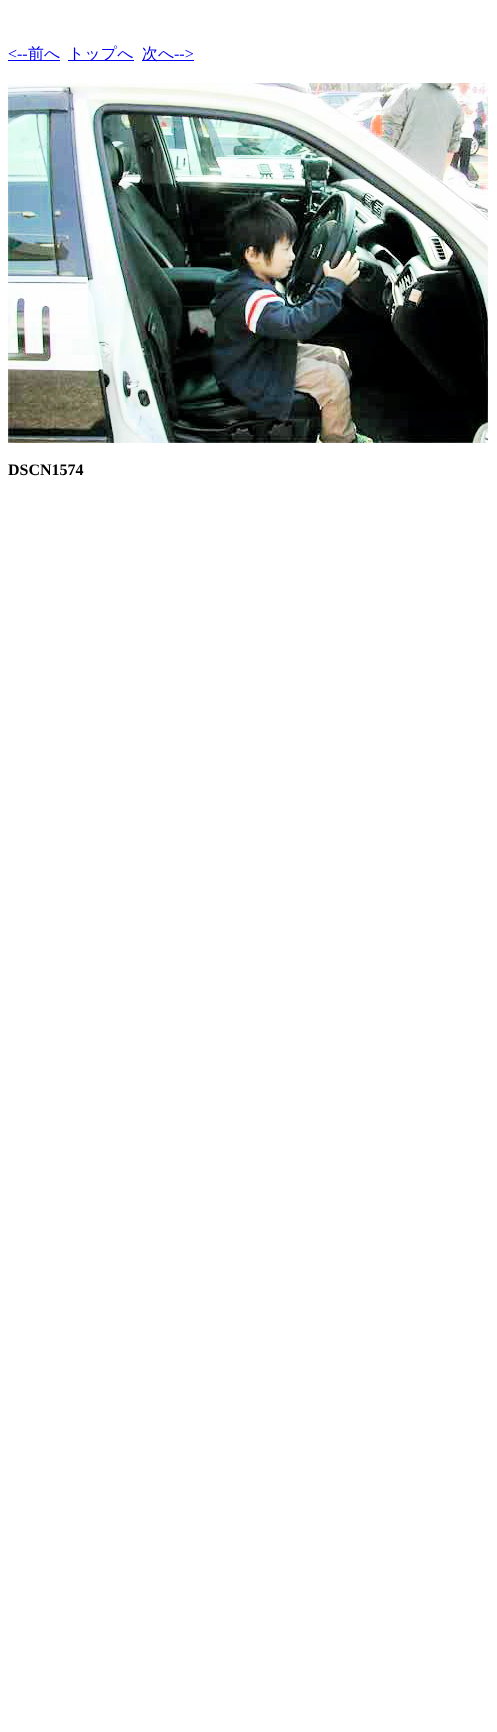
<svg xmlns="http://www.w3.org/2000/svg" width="497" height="1732">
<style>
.a{font:16px Liberation Serif;fill:#00e}
.b{font:500 16px WenQuanYi Zen Hei;fill:#00e}
.c{font:bold 16px Liberation Serif;fill:#000}
</style>
<rect width="100%" height="100%" fill="#fff"/>
<path fill="#00e" d="M8 60h52v1H8z"/>
<path fill="#00e" d="M68 60h66v1H68z"/>
<path fill="#00e" d="M142 60h52v1H142z"/>
<image href="1.png" x="8" y="83" width="480" height="360"/>
<text class="a" x="8" y="59">&lt;--</text>
<text class="b" x="28" y="59">前へ</text>
<text class="b" x="68" y="59">トップへ</text>
<text class="b" x="142" y="59">次へ</text>
<text class="a" x="174" y="59">--&gt;</text>
<text class="c" x="8" y="475">DSCN1574</text>
</svg>
